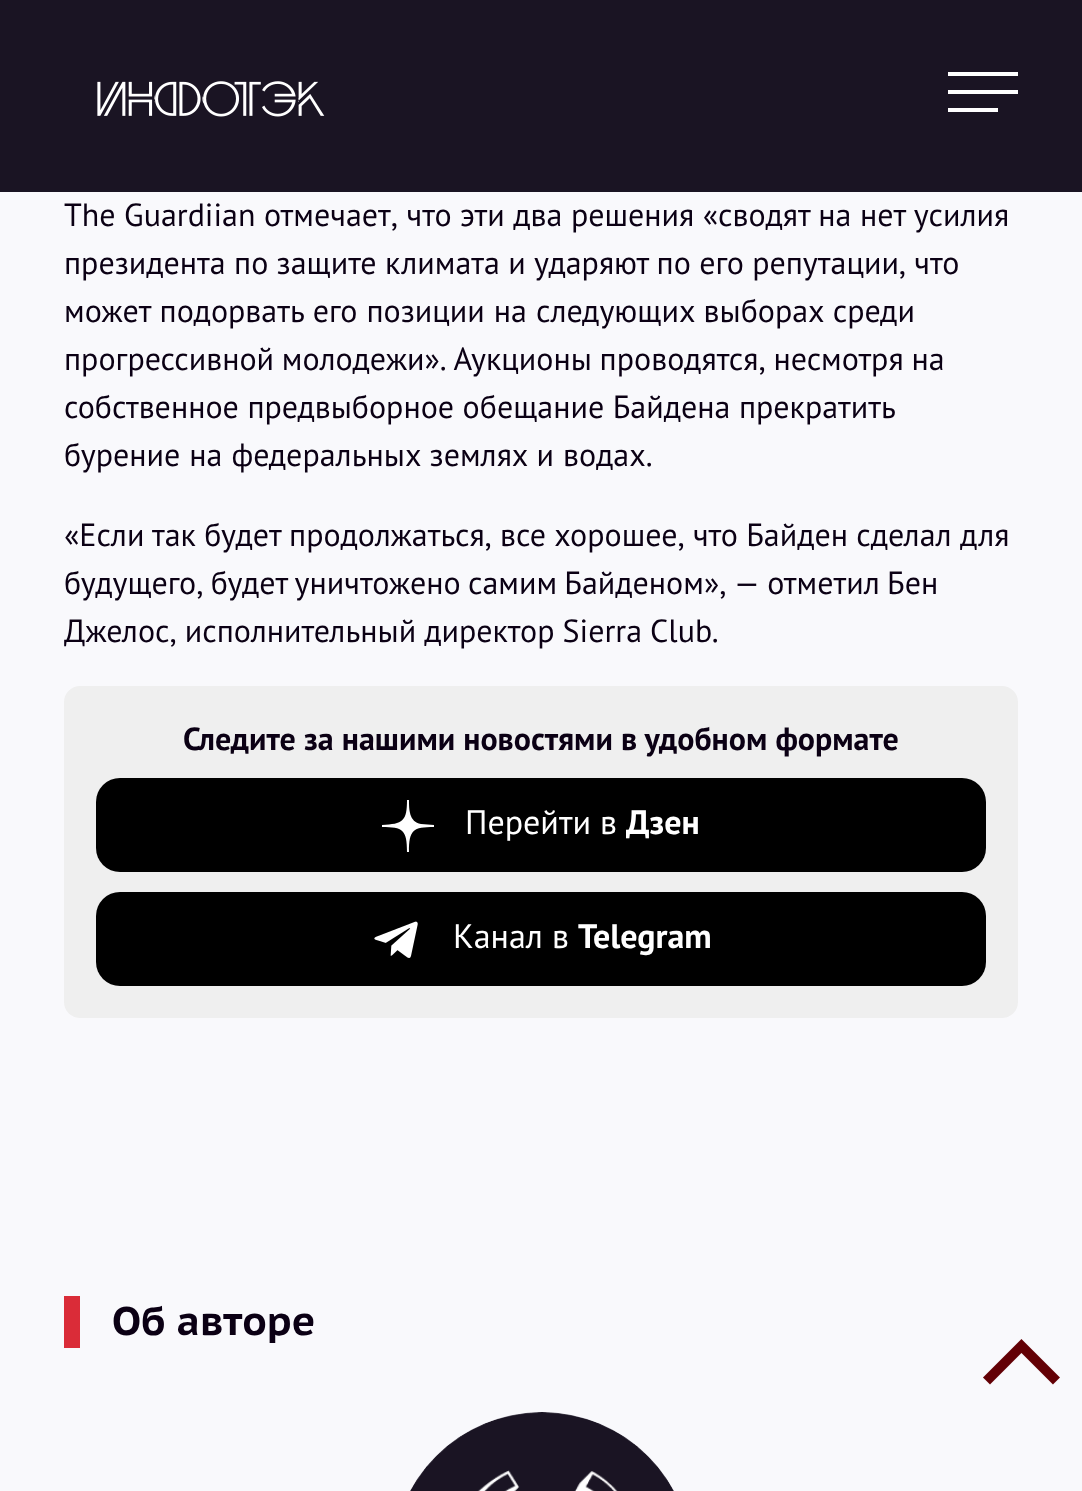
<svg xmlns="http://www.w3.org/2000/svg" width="1082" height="1491">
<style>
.a{font:32px PT Sans;fill:#0b0014}
.b{font:bold 32px PT Sans;fill:#0b0014}
.c{font:34px PT Sans;fill:#fff}
.d{font:bold 34px PT Sans;fill:#fff}
.e{font:bold 40px PT Sans Caption;fill:#0b0014}
.f{font:50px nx;fill:#630005}
</style>
<rect width="100%" height="100%" fill="#f9f9fc"/>
<path fill="#1a1423" d="M0 0h1082v192H0z"/>
<image href="1.png" x="97" y="81" width="228" height="36"/>
<path fill="#fff" d="M948 72h70v4H948z"/>
<path fill="#fff" d="M948 90h70v4H948z"/>
<path fill="#fff" d="M948 108h50v4H948z"/>
<rect fill="#efefef" x="64" y="686" width="954" height="332" rx="16"/>
<rect fill="#000" x="96" y="778" width="890" height="94" rx="24"/>
<path fill="#fff" d="M421 824c-12-2-12-15-12-24h-2c0 21-4 24-25 25v2c21 0 25 3 25 25h2c0-22 4-25 25-25v-2z"/>
<rect fill="#000" x="96" y="892" width="890" height="94" rx="24"/>
<image href="2.png" x="374" y="921" width="44" height="37"/>
<path fill="#da2c38" d="M64 1296h16v52H64z"/>
<image href="3.png" x="410" y="1412" width="264" height="79"/>
<text class="a" x="64" y="226">The Guardiian отмечает, что эти два решения «сводят на нет усилия</text>
<text class="a" x="64" y="274" word-spacing="-0.25">президента по защите климата и ударяют по его репутации, что</text>
<text class="a" x="64" y="322" word-spacing="0.5">может подорвать его позиции на следующих выборах среди</text>
<text class="a" x="64" y="370" word-spacing="-0.75">прогрессивной молодежи». Аукционы проводятся, несмотря на</text>
<text class="a" x="64" y="418">собственное предвыборное обещание Байдена прекратить</text>
<text class="a" x="64" y="466" word-spacing="0.5">бурение на федеральных землях и водах.</text>
<text class="a" x="64" y="546" word-spacing="-0.25">«Если так будет продолжаться, все хорошее, что Байден сделал для</text>
<text class="a" x="64" y="594" word-spacing="-1.25">будущего, будет уничтожено самим Байденом», — отметил Бен</text>
<text class="a" x="64" y="642" word-spacing="-0.5">Джелос, исполнительный директор Sierra Club.</text>
<text class="b" x="183" y="750">Следите за нашими новостями в удобном формате</text>
<text class="c" x="465" y="834">Перейти в</text>
<text class="d" x="626" y="834">Дзен</text>
<text class="c" x="453" y="948">Канал в</text>
<text class="d" x="578" y="948">Telegram</text>
<text class="e" x="112" y="1335">Об авторе</text>
<text class="f" x="1060" y="1342" transform="rotate(180 1060 1342)">с</text>
</svg>
